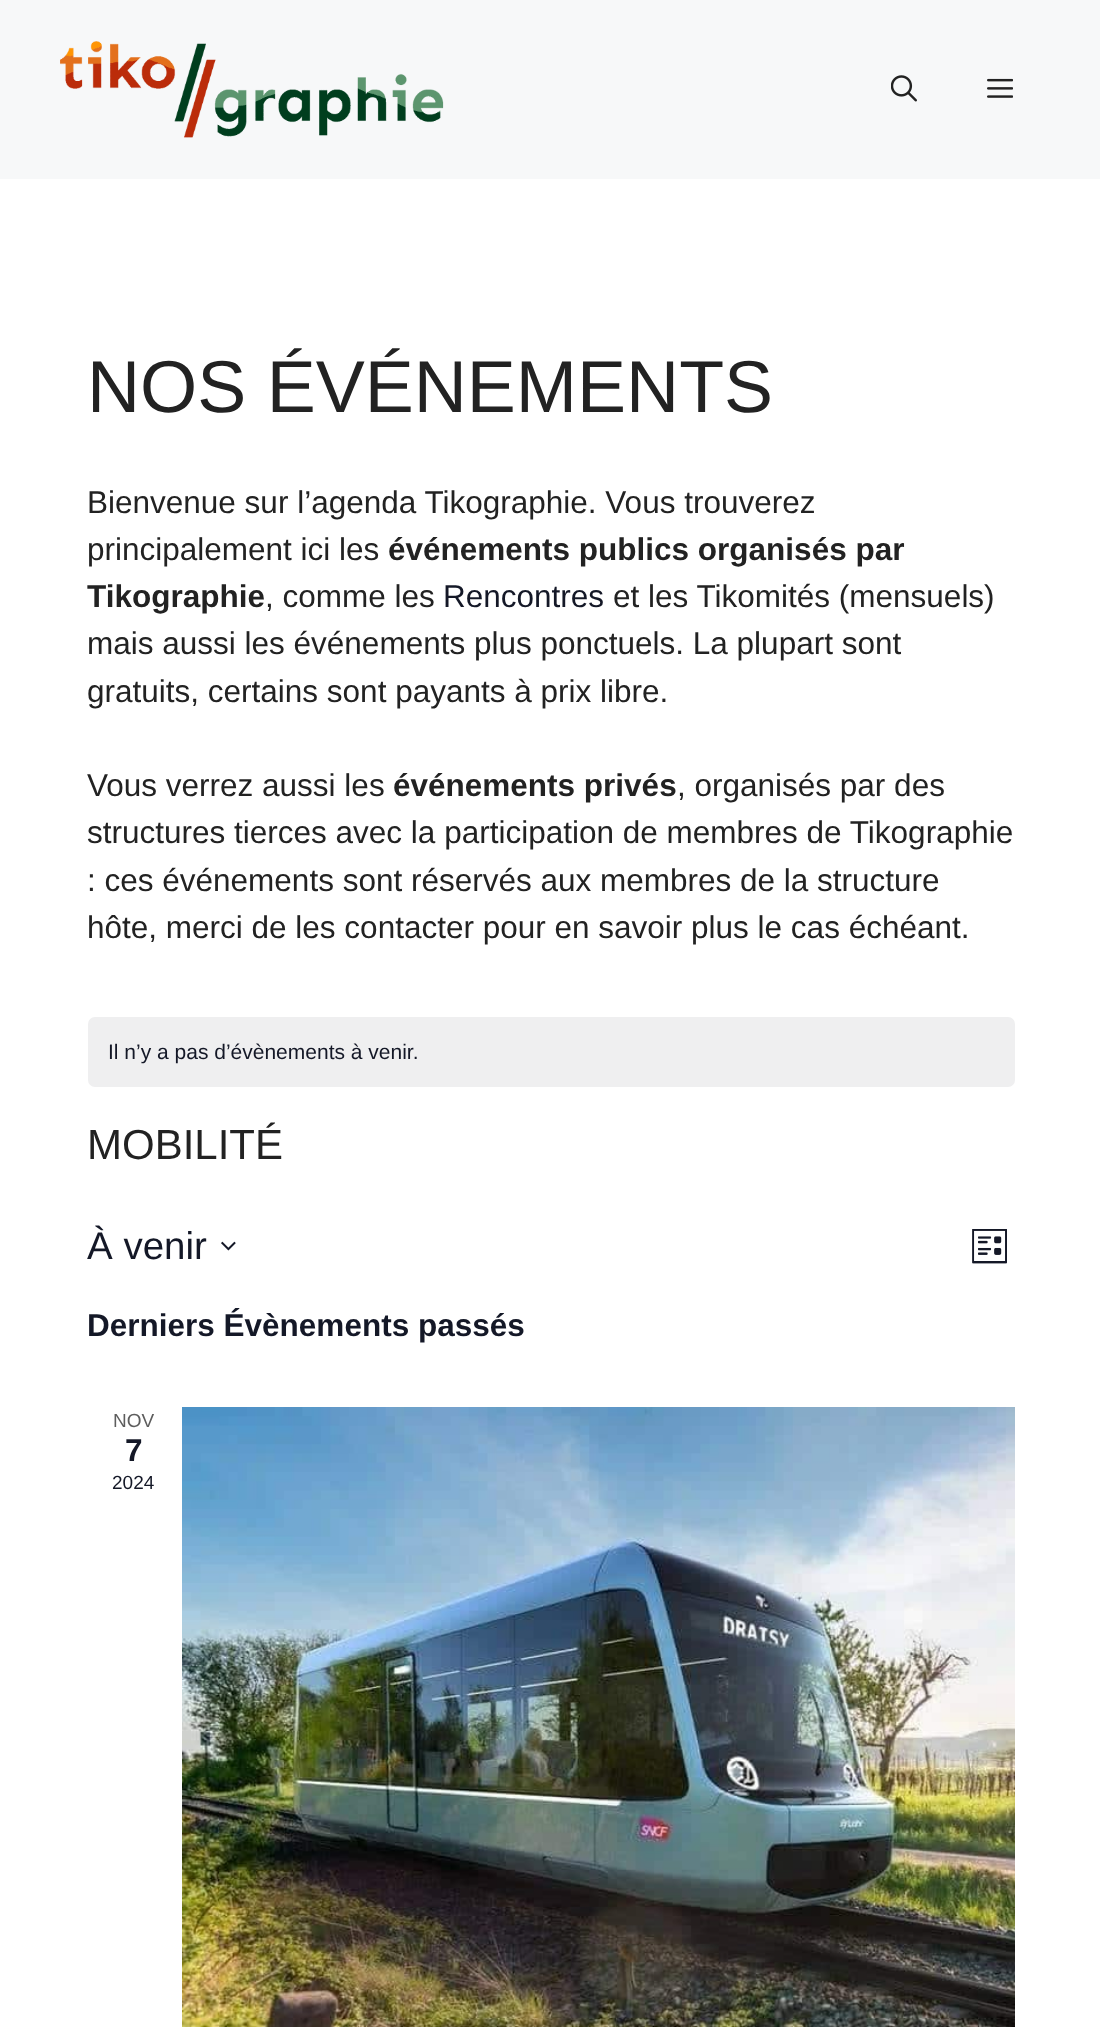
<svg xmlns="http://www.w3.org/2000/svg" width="1100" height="2027">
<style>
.a{font:73.5px Liberation Sans;fill:#222}
.b{font:31.5px Liberation Sans;fill:#222}
.c{font:bold 31.5px Liberation Sans;fill:#222}
.d{font:31.5px Liberation Sans;fill:#141827}
.e{font:21px Liberation Sans;fill:#141827}
.f{font:42px Liberation Sans;fill:#222}
.g{font:38.5px Liberation Sans;fill:#141827}
.h{font:bold 31.5px Liberation Sans;fill:#141827}
.i{font:19px Liberation Sans;fill:#5d5d5d}
.j{font:19px Liberation Sans;fill:#141827}
</style>
<rect width="100%" height="100%" fill="#fff"/>
<path fill="#f7f8f9" d="M0 0h1100v179H0z"/>
<image href="1.png" x="60" y="41" width="384" height="97"/>
<image href="2.png" x="891" y="75" width="26" height="27"/>
<image href="3.png" x="987" y="78" width="26" height="20"/>
<rect fill="#efeff0" x="88" y="1017" width="927" height="70" rx="7"/>
<image href="4.png" x="221" y="1241" width="15" height="10"/>
<image href="5.png" x="972" y="1229" width="35" height="35"/>
<image href="6.png" x="182" y="1407" width="833" height="620"/>
<text class="a" x="87" y="412">NOS ÉVÉNEMENTS</text>
<text class="b" x="87" y="513">Bienvenue sur l’agenda Tikographie. Vous trouverez</text>
<text class="b" x="87" y="560">principalement ici les</text>
<text class="c" x="388" y="560">événements publics organisés par</text>
<text class="c" x="87" y="607">Tikographie</text>
<text class="b" x="265" y="607">, comme les</text>
<text class="d" x="443" y="607">Rencontres</text>
<text class="b" x="613" y="607">et les Tikomités (mensuels)</text>
<text class="b" x="87" y="654">mais aussi les événements plus ponctuels. La plupart sont</text>
<text class="b" x="87" y="702">gratuits, certains sont payants à prix libre.</text>
<text class="b" x="87" y="796">Vous verrez aussi les</text>
<text class="c" x="393" y="796">événements privés</text>
<text class="b" x="677" y="796">, organisés par des</text>
<text class="b" x="87" y="843">structures tierces avec la participation de membres de Tikographie</text>
<text class="b" x="87" y="891">: ces événements sont réservés aux membres de la structure</text>
<text class="b" x="87" y="938">hôte, merci de les contacter pour en savoir plus le cas échéant.</text>
<text class="e" x="108" y="1059">Il n’y a pas d’évènements à venir.</text>
<text class="f" x="87" y="1159">MOBILITÉ</text>
<text class="g" x="87" y="1259">À venir</text>
<text class="h" x="87" y="1336">Derniers Évènements passés</text>
<text class="i" x="113" y="1427">NOV</text>
<text class="h" x="125" y="1461">7</text>
<text class="j" x="112" y="1489">2024</text>
</svg>
